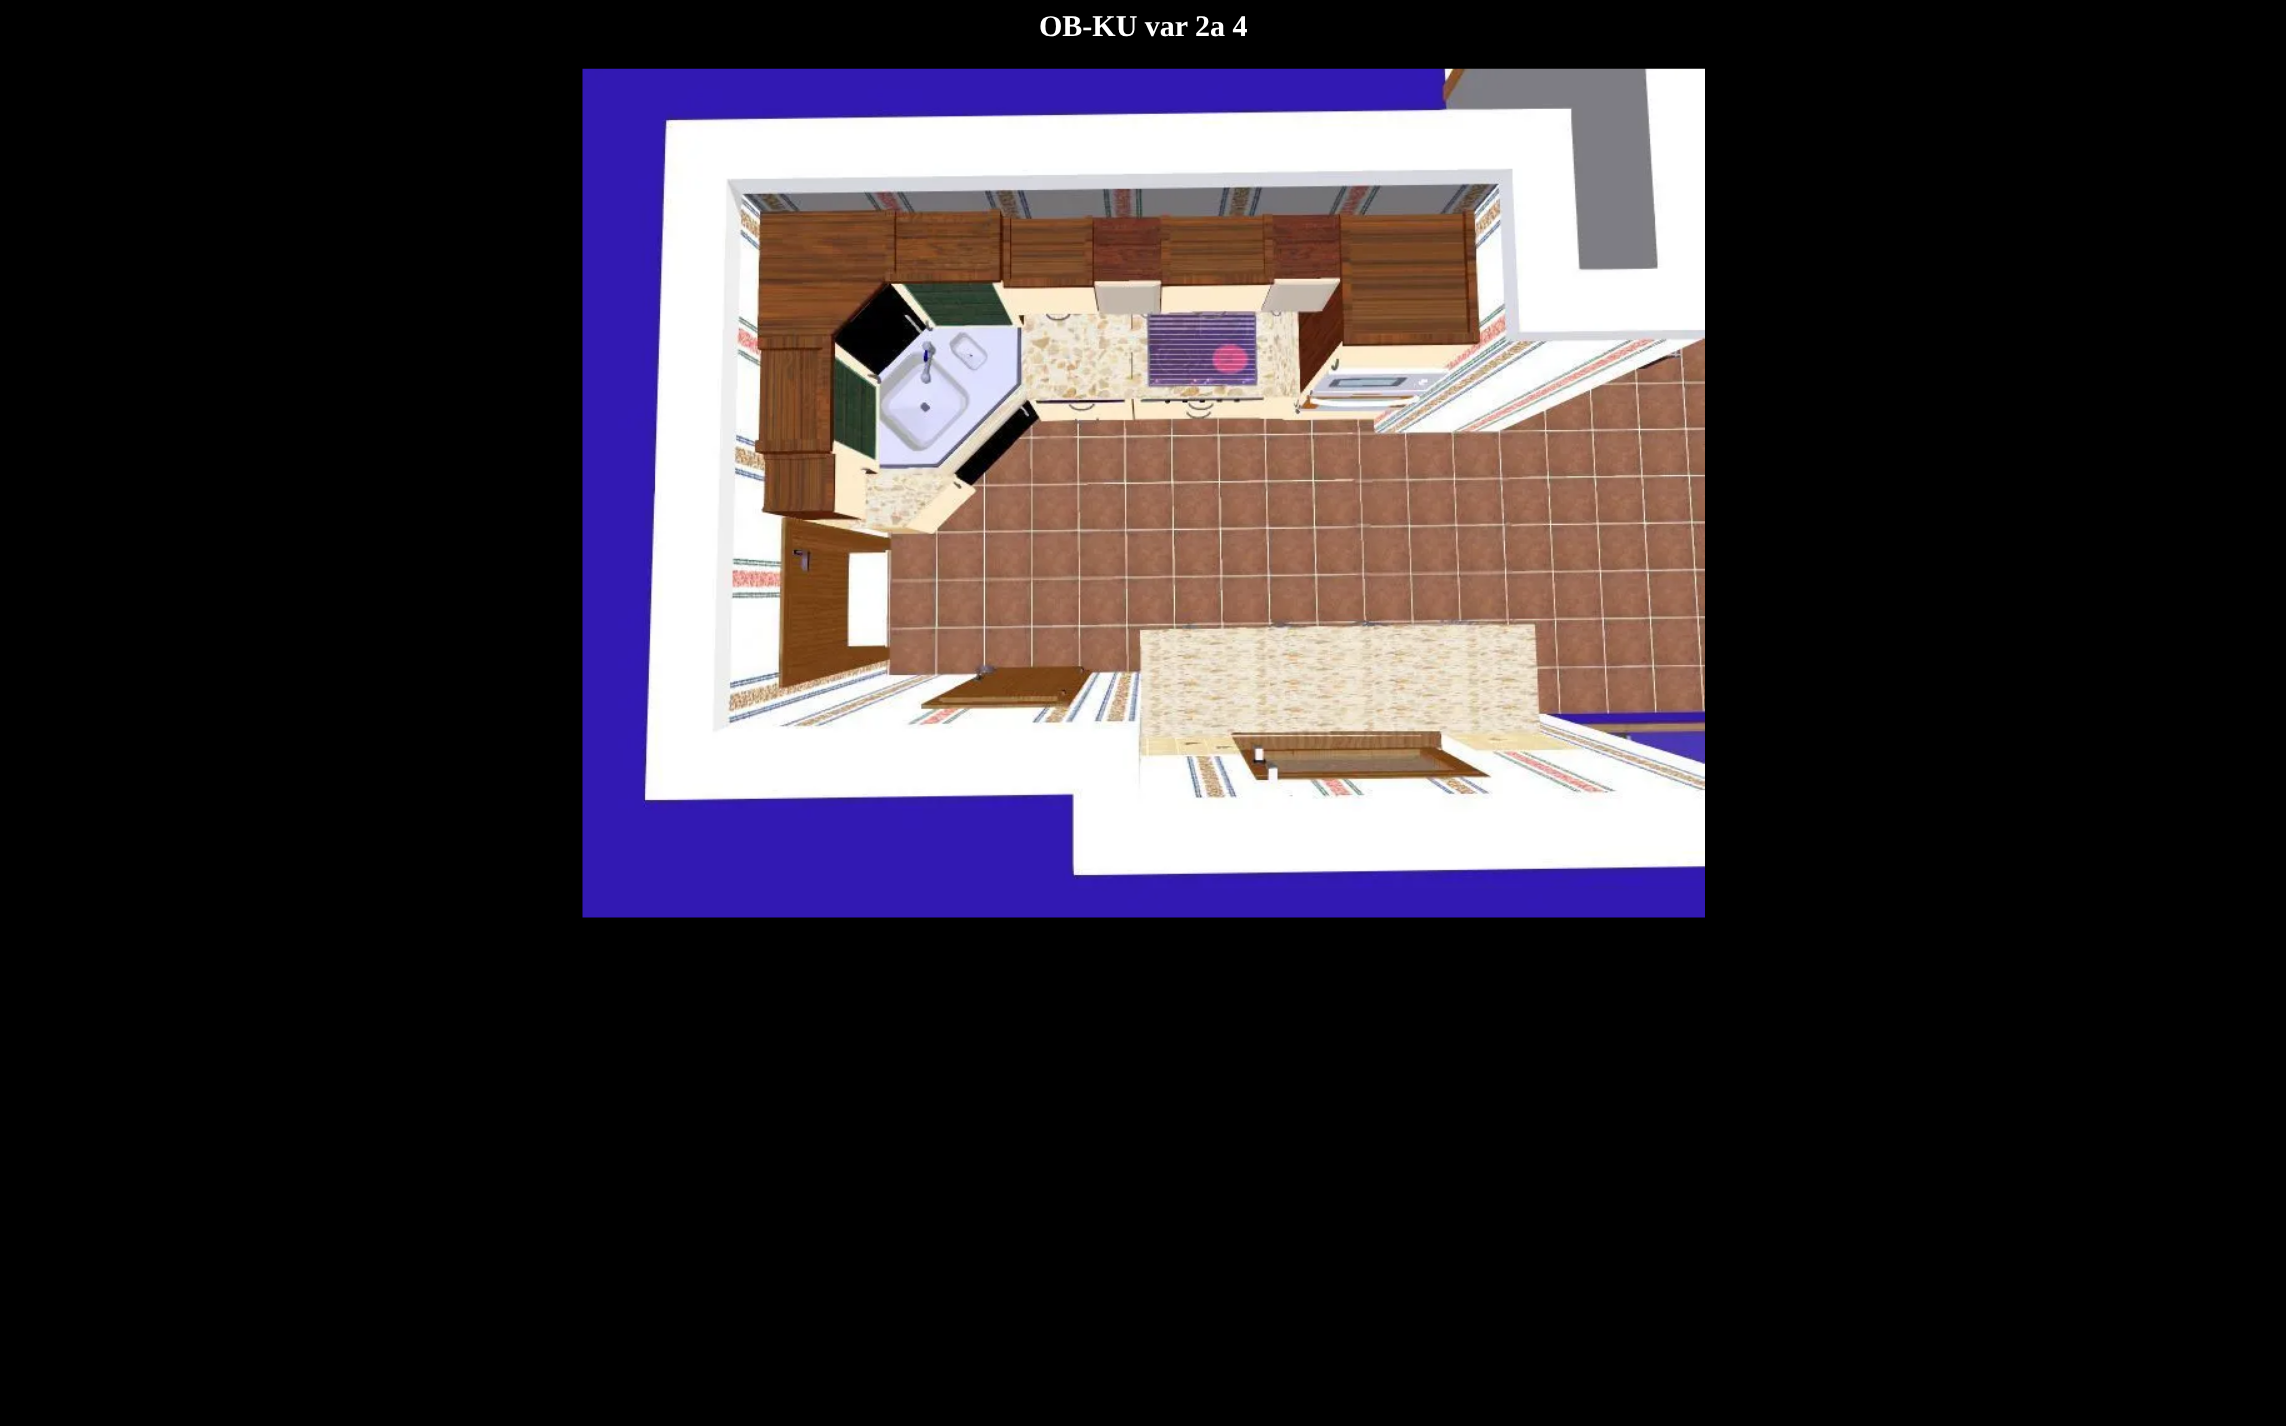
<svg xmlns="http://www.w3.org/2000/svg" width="2286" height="1426">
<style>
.a{font:bold 30px Liberation Serif;fill:#fff}
</style>
<rect width="100%" height="100%" fill="#000"/>
<image href="1.png" x="582" y="68" width="1123" height="850"/>
<text class="a" x="1039" y="36">OB-KU var 2a 4</text>
</svg>
